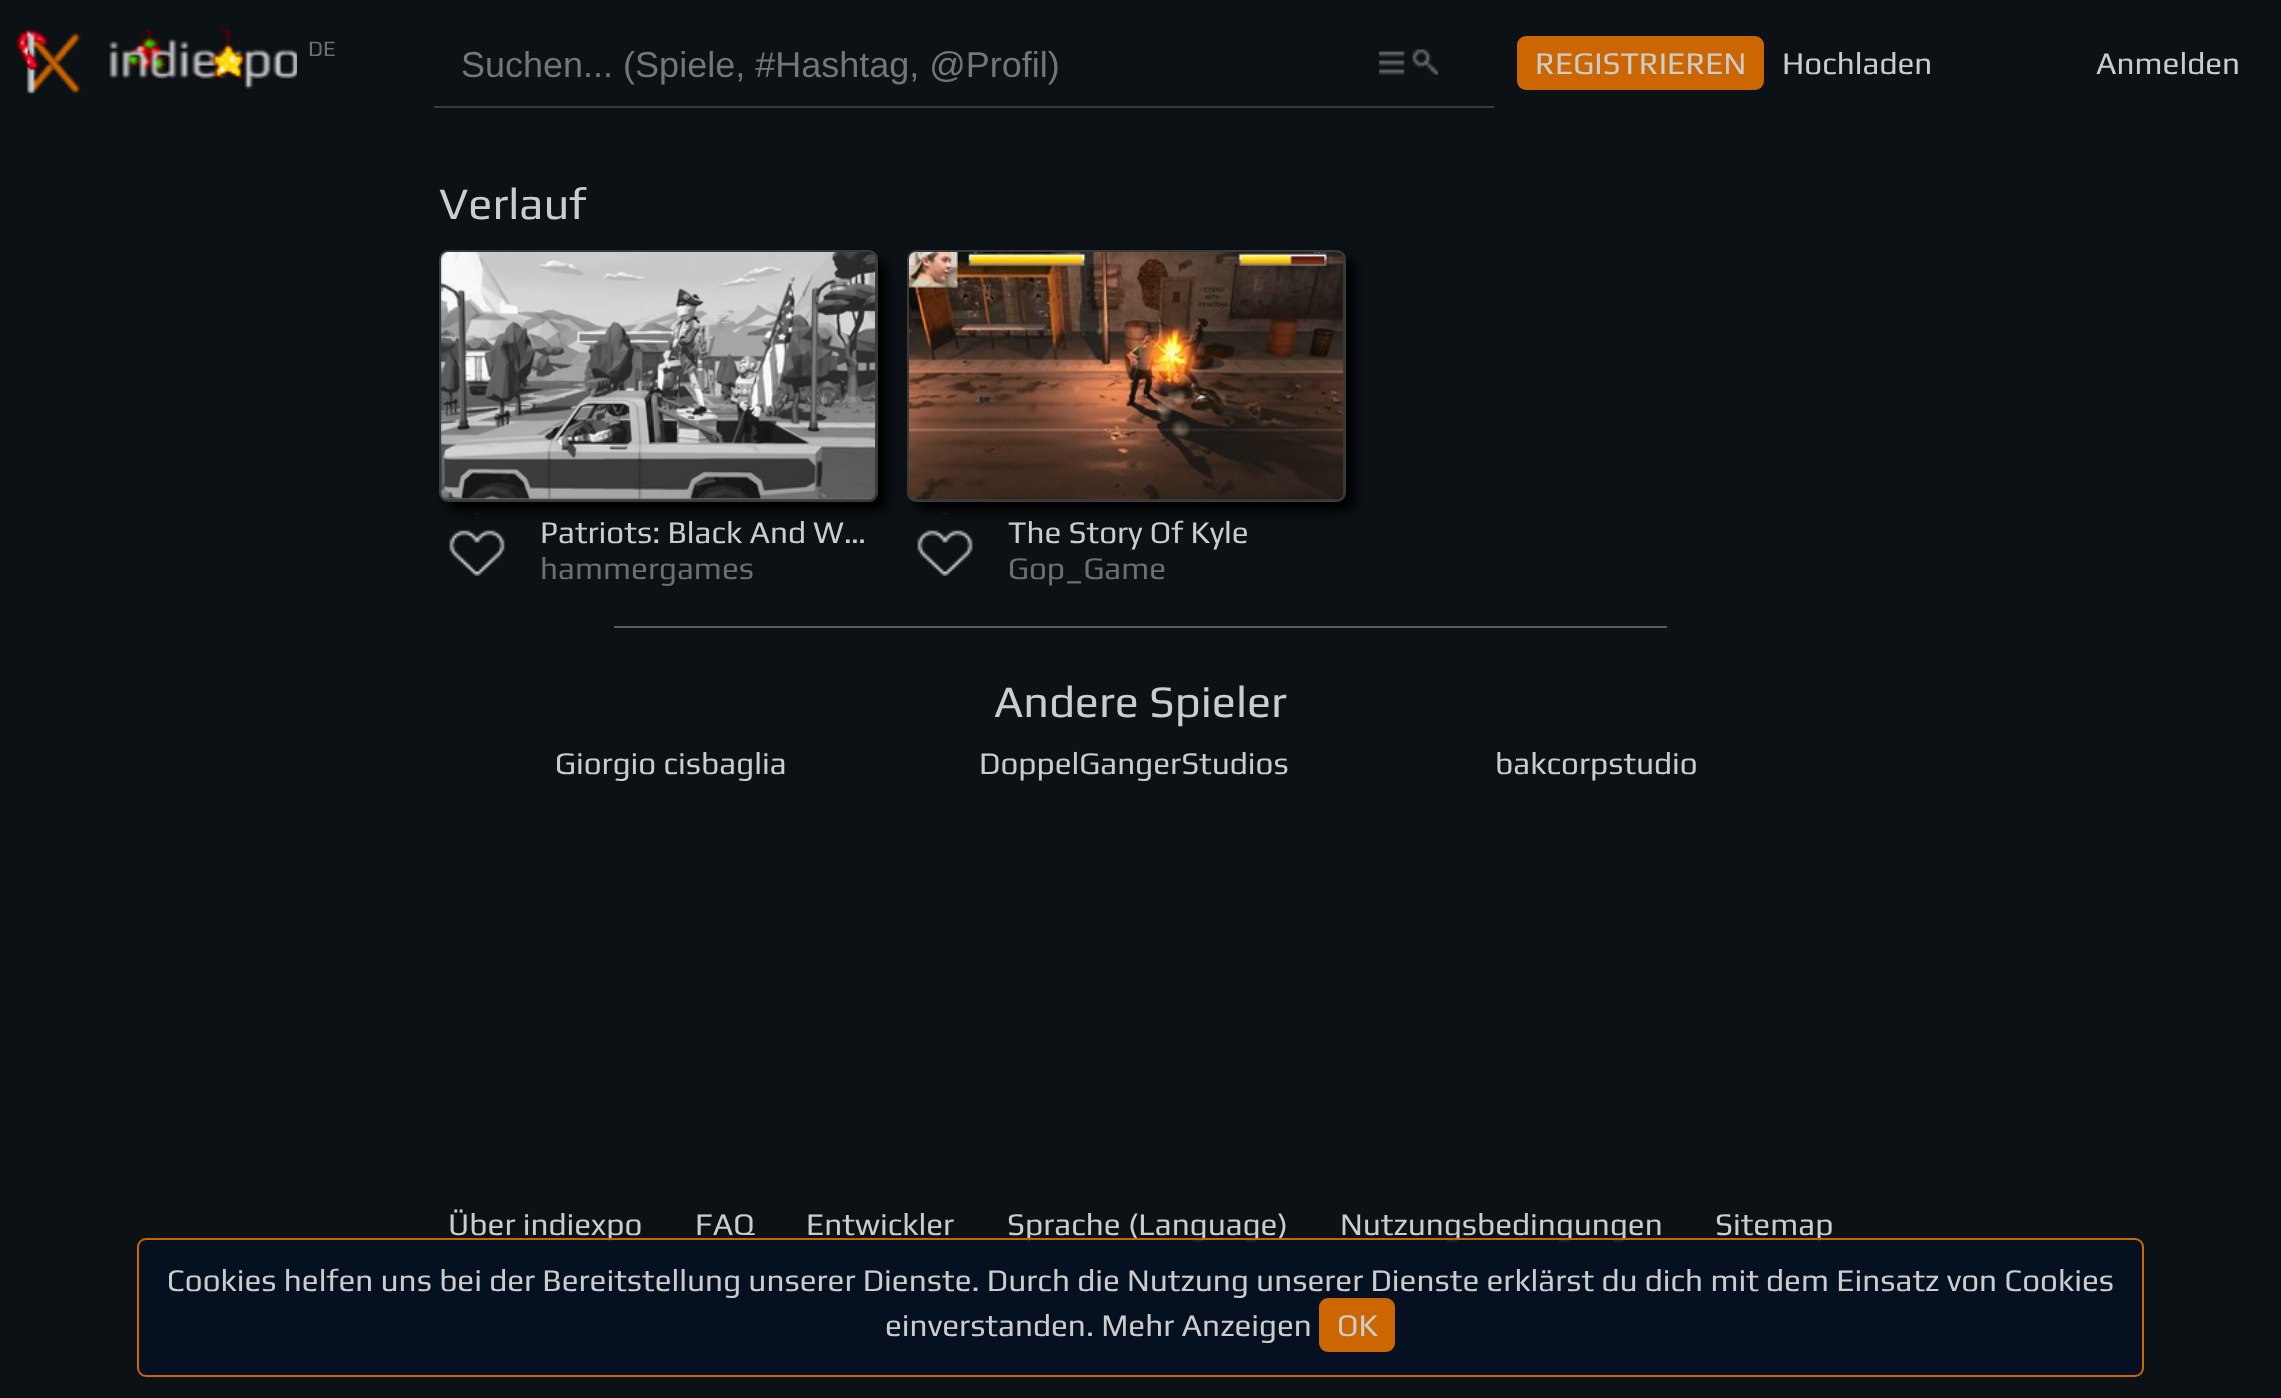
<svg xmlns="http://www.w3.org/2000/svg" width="2281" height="1398">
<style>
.a{font:22px Play;fill:#6c6f71}
.b{font:36px Liberation Sans;fill:#757575}
.c{font:31.5px Play;fill:#ccc}
.d{font:45px Play;fill:#ccc}
.e{font:31.5px Play;fill:#6c6f71}
</style>
<rect width="100%" height="100%" fill="#0c1116"/>
<image href="1.png" x="16" y="28" width="281" height="66"/>
<path fill="#393a3a" d="M434 106h1060v2H434z"/>
<image href="2.png" x="1379" y="49" width="59" height="26"/>
<rect fill="#c60" x="1517" y="36" width="247" height="54" rx="9"/>
<image href="4.png" x="449" y="513" width="56" height="63"/>
<rect fill="#000" filter="blur(5.5px)" x="448" y="259" width="439" height="252" rx="9"/>
<rect fill="#393a3a" stroke="#393a3a" stroke-width="2" x="440" y="251" width="437" height="250" rx="8"/>
<image href="3.png" x="441" y="252" width="435" height="248"/>
<image href="6.png" x="917" y="513" width="56" height="63"/>
<rect fill="#000" filter="blur(5.5px)" x="916" y="259" width="439" height="252" rx="9"/>
<rect fill="#393a3a" stroke="#393a3a" stroke-width="2" x="908" y="251" width="437" height="250" rx="8"/>
<image href="5.png" x="909" y="252" width="435" height="248"/>
<path fill="#595c5f" d="M614 626h1053v2H614z"/>
<text class="a" x="308" y="56">DE</text>
<text class="b" x="461" y="77">Suchen... (Spiele, #Hashtag, @Profil)</text>
<text class="c" x="1535" y="74">REGISTRIEREN</text>
<text class="c" x="1782" y="74">Hochladen</text>
<text class="c" x="2096" y="74">Anmelden</text>
<text class="d" x="439" y="219">Verlauf</text>
<text class="c" x="540" y="543">Patriots: Black And W…</text>
<text class="e" x="540" y="579">hammergames</text>
<text class="c" x="1008" y="543">The Story Of Kyle</text>
<text class="e" x="1008" y="579">Gop_Game</text>
<text class="d" x="994" y="717">Andere Spieler</text>
<text class="c" x="555" y="774">Giorgio cisbaglia</text>
<text class="c" x="979" y="774">DoppelGangerStudios</text>
<text class="c" x="1495" y="774">bakcorpstudio</text>
<text class="c" x="448" y="1235">Über indiexpo</text>
<text class="c" x="695" y="1235">FAQ</text>
<text class="c" x="806" y="1235">Entwickler</text>
<text class="c" x="1007" y="1235">Sprache (Language)</text>
<text class="c" x="1340" y="1235">Nutzungsbedingungen</text>
<text class="c" x="1715" y="1235">Sitemap</text>
<rect fill="#041221e6" stroke="#c60" stroke-width="2" x="138" y="1239" width="2005" height="137" rx="8"/>
<text class="c" x="167" y="1291">Cookies helfen uns bei der Bereitstellung unserer Dienste. Durch die Nutzung unserer Dienste erklärst du dich mit dem Einsatz von Cookies</text>
<text class="c" x="885" y="1336">einverstanden. Mehr Anzeigen</text>
<rect fill="#c60" x="1319" y="1298" width="76" height="54" rx="9"/>
<text class="c" x="1337" y="1336">OK</text>
</svg>
